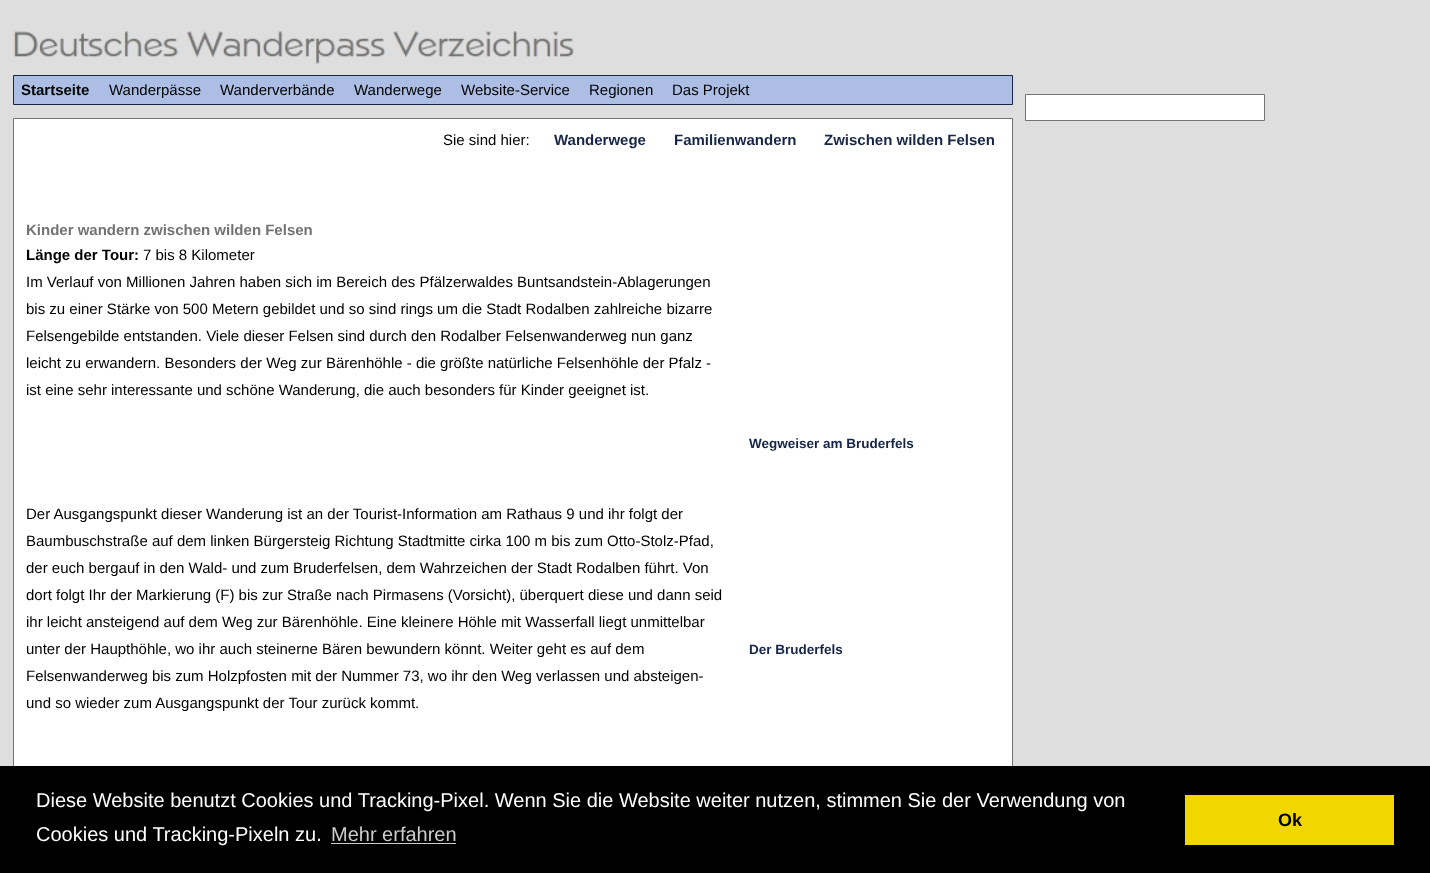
<svg xmlns="http://www.w3.org/2000/svg" width="1430" height="873">
<style>
.a{font:bold 15px Liberation Sans;fill:#000}
.b{font:15px Liberation Sans;fill:#000}
.c{font:bold 15px Liberation Sans;fill:#172647}
.d{font:bold 15px Liberation Sans;fill:#737373}
.e{font:bold 13.5px Liberation Sans;fill:#172647}
.f{font:20px Liberation Sans;fill:#fff}
.g{font:20px Liberation Sans;fill:#ccc}
.h{font:bold 18px Liberation Sans;fill:#000}
</style>
<rect width="100%" height="100%" fill="#dedede"/>
<image href="1.png" x="13" y="31" width="561" height="33"/>
<path fill="#acbee4" stroke="#172647" d="M13.5 75.5h999v29H13.5z"/>
<path fill="#fff" d="M14 119h998v647H14z"/>
<path fill="none" stroke="#737373" d="M13.5 118.5h999v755H13.5z"/>
<path fill="#fff" stroke="#737373" d="M1025.5 94.5h239v26H1025.5z"/>
<path fill="#000" d="M0 766h1430v107H0z"/>
<path fill="#ccc" d="M331 843h125v1H331z"/>
<path fill="#f1d600" d="M1185 795h209v50H1185z"/>
<text class="a" x="21" y="95">Startseite</text>
<text class="b" x="109" y="95">Wanderpässe</text>
<text class="b" x="220" y="95">Wanderverbände</text>
<text class="b" x="354" y="95">Wanderwege</text>
<text class="b" x="461" y="95">Website-Service</text>
<text class="b" x="589" y="95">Regionen</text>
<text class="b" x="672" y="95">Das Projekt</text>
<text class="b" x="443" y="145">Sie sind hier:</text>
<text class="c" x="554" y="145">Wanderwege</text>
<text class="c" x="674" y="145">Familienwandern</text>
<text class="c" x="824" y="145">Zwischen wilden Felsen</text>
<text class="d" x="26" y="235">Kinder wandern zwischen wilden Felsen</text>
<text class="a" x="26" y="260">Länge der Tour:</text>
<text class="b" x="143" y="260">7 bis 8 Kilometer</text>
<text class="b" x="26" y="287">Im Verlauf von Millionen Jahren haben sich im Bereich des Pfälzerwaldes Buntsandstein-Ablagerungen</text>
<text class="b" x="26" y="314">bis zu einer Stärke von 500 Metern gebildet und so sind rings um die Stadt Rodalben zahlreiche bizarre</text>
<text class="b" x="26" y="341">Felsengebilde entstanden. Viele dieser Felsen sind durch den Rodalber Felsenwanderweg nun ganz</text>
<text class="b" x="26" y="368">leicht zu erwandern. Besonders der Weg zur Bärenhöhle - die größte natürliche Felsenhöhle der Pfalz -</text>
<text class="b" x="26" y="395">ist eine sehr interessante und schöne Wanderung, die auch besonders für Kinder geeignet ist.</text>
<text class="e" x="749" y="448">Wegweiser am Bruderfels</text>
<text class="b" x="26" y="519">Der Ausgangspunkt dieser Wanderung ist an der Tourist-Information am Rathaus 9 und ihr folgt der</text>
<text class="b" x="26" y="546">Baumbuschstraße auf dem linken Bürgersteig Richtung Stadtmitte cirka 100 m bis zum Otto-Stolz-Pfad,</text>
<text class="b" x="26" y="573">der euch bergauf in den Wald- und zum Bruderfelsen, dem Wahrzeichen der Stadt Rodalben führt. Von</text>
<text class="b" x="26" y="600">dort folgt Ihr der Markierung (F) bis zur Straße nach Pirmasens (Vorsicht), überquert diese und dann seid</text>
<text class="b" x="26" y="627">ihr leicht ansteigend auf dem Weg zur Bärenhöhle. Eine kleinere Höhle mit Wasserfall liegt unmittelbar</text>
<text class="b" x="26" y="654">unter der Haupthöhle, wo ihr auch steinerne Bären bewundern könnt. Weiter geht es auf dem</text>
<text class="b" x="26" y="681">Felsenwanderweg bis zum Holzpfosten mit der Nummer 73, wo ihr den Weg verlassen und absteigen-</text>
<text class="b" x="26" y="708">und so wieder zum Ausgangspunkt der Tour zurück kommt.</text>
<text class="e" x="749" y="654">Der Bruderfels</text>
<text class="f" x="36" y="807">Diese Website benutzt Cookies und Tracking-Pixel. Wenn Sie die Website weiter nutzen, stimmen Sie der Verwendung von</text>
<text class="f" x="36" y="841">Cookies und Tracking-Pixeln zu.</text>
<text class="g" x="331" y="841">Mehr erfahren</text>
<text class="h" x="1278" y="826">Ok</text>
</svg>
